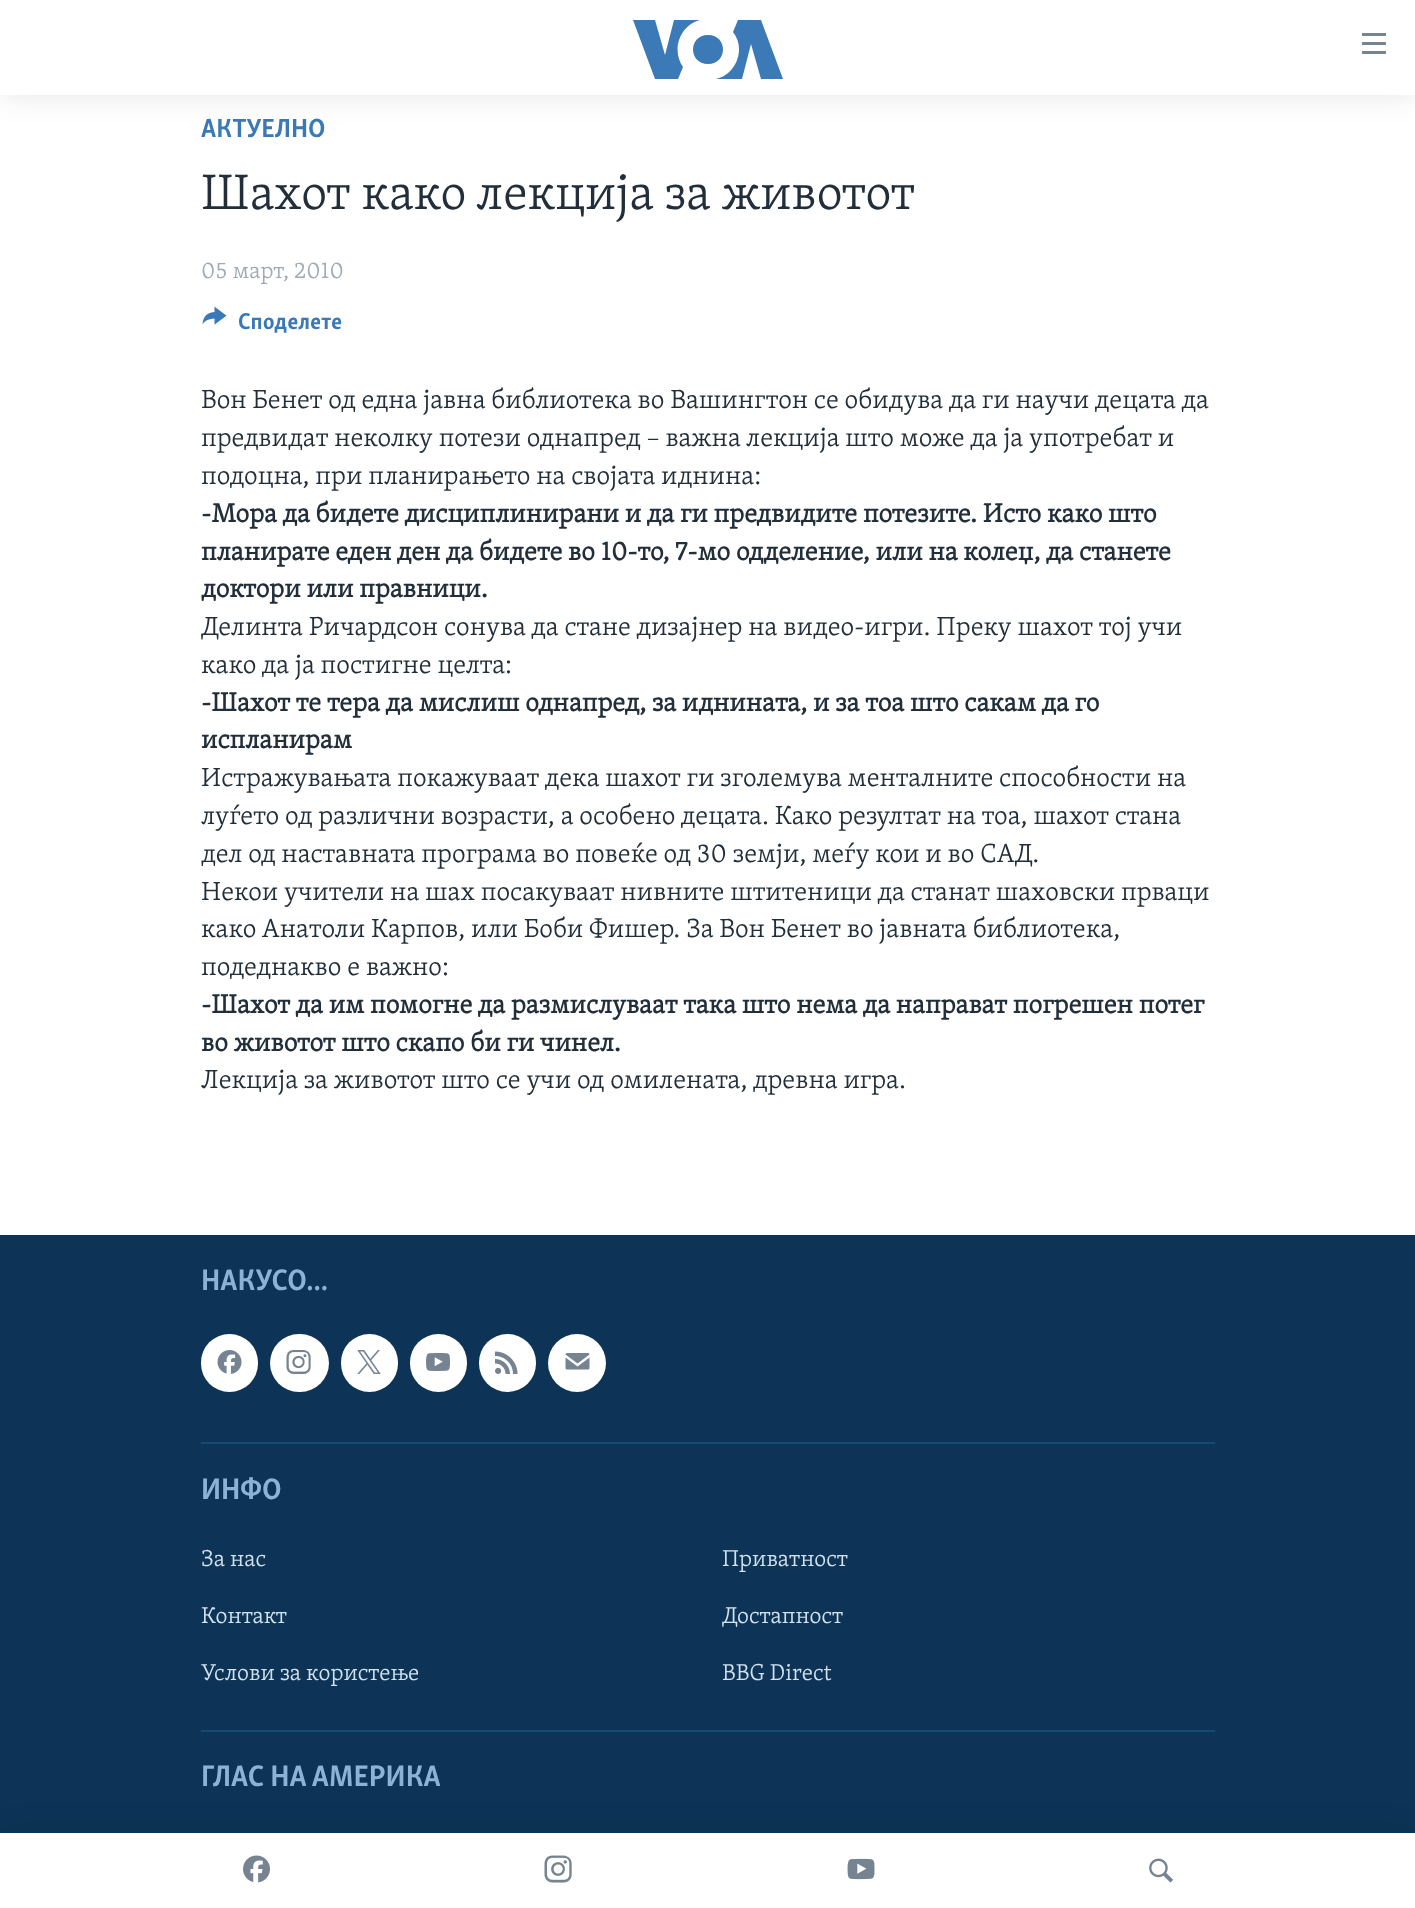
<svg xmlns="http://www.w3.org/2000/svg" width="1415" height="1908">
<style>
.a{font:bold 27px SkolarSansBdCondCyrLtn;fill:#3a79b7}
.b{font:300 51.25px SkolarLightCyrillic;fill:#222f3a}
.c{font:300 23.6px SkolarLightCyrillic;fill:#a1aab4}
.d{font:bold 23.6px SkolarSansBdCondCyrLtn;fill:#3a79b7}
.e{font:300 27px SkolarLightCyrillic;fill:#222f3a}
.f{font:bold 27px SkolarLightCyrillic;fill:#222f3a}
.g{font:bold 30.5px SkolarSansBdCondCyrLtn;fill:#8db3d4}
.h{font:300 23.6px SkolarLightCyrillic;fill:#d1e1ee}
</style>
<rect width="100%" height="100%" fill="#fff"/>
<path fill="#0000001a" filter="blur(15px)" d="M0 0h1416v95H0z"/>
<path fill="#fff" d="M0 0h1415v95H0z"/>
<path fill="#3b79b7" d="M683 67l-5 12h-23l-22-59h22l10 35l9-35h26c-20 5-29 30-17 47zm25-32c-20 0-20 29 0 29c20 0 20-29 0-29zm31 14c0 15-10 27-23 30h26l9-35l10 35h22l-22-59h-23l-5 12c4 5 6 11 6 17z"/>
<image href="1.png" x="1362" y="33" width="24" height="21"/>
<path fill="#0d3456" d="M0 1235h1415v598H0z"/>
<path fill="#0000001a" filter="blur(15px)" d="M0 1833h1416v75H0z"/>
<path fill="#fff" d="M0 1833h1415v75H0z"/>
<image href="2.png" x="243" y="1855" width="27" height="28"/>
<image href="3.png" x="544" y="1855" width="28" height="28"/>
<image href="4.png" x="847" y="1858" width="28" height="22"/>
<image href="5.png" x="1149" y="1858" width="24" height="25"/>
<image href="6.png" x="202" y="306" width="25" height="19"/>
<rect fill="#fff" x="201" y="1334" width="57" height="58" rx="28.5"/>
<image href="7.png" x="217" y="1350" width="25" height="24"/>
<rect fill="#fff" x="270" y="1334" width="59" height="58" rx="29"/>
<image href="8.png" x="286" y="1350" width="25" height="24"/>
<rect fill="#fff" x="341" y="1334" width="57" height="58" rx="28.5"/>
<image href="9.png" x="357" y="1350" width="24" height="24"/>
<rect fill="#fff" x="410" y="1334" width="57" height="58" rx="28.5"/>
<image href="10.png" x="426" y="1353" width="24" height="18"/>
<rect fill="#fff" x="479" y="1334" width="57" height="58" rx="28.5"/>
<image href="11.png" x="495" y="1351" width="23" height="23"/>
<circle fill="#fff" cx="577" cy="1363" r="29"/>
<image href="12.png" x="565" y="1353" width="25" height="17"/>
<path fill="#134976" d="M201 1442h1014v2H201z"/>
<path fill="#134976" d="M201 1730h1014v2H201z"/>
<text class="a" x="201" y="137">АКТУЕЛНО</text>
<text class="b" x="201" y="209">Шахот како лекција за животот</text>
<text class="c" x="201" y="278">05 март, 2010</text>
<text class="d" x="238" y="329">Споделете</text>
<text class="e" x="201" y="408">Вон Бенет од една јавна библиотека во Вашингтон се обидува да ги научи децата да</text>
<text class="e" x="201" y="446">предвидат неколку потези однапред – важна лекција што може да ја употребат и</text>
<text class="e" x="201" y="484">подоцна, при планирањето на својата иднина:</text>
<text class="f" x="201" y="522">-Мора да бидете дисциплинирани и да ги предвидите потезите. Исто како што</text>
<text class="f" x="201" y="560">планирате еден ден да бидете во 10-то, 7-мо одделение, или на колеџ, да станете</text>
<text class="f" x="201" y="597">доктори или правници.</text>
<text class="e" x="201" y="635">Делинта Ричардсон сонува да стане дизајнер на видео-игри. Преку шахот тој учи</text>
<text class="e" x="201" y="673">како да ја постигне целта:</text>
<text class="f" x="201" y="711">-Шахот те тера да мислиш однапред, за иднината, и за тоа што сакам да го</text>
<text class="f" x="201" y="748">испланирам</text>
<text class="e" x="201" y="786">Истражувањата покажуваат дека шахот ги зголемува менталните способности на</text>
<text class="e" x="201" y="824">луѓето од различни возрасти, а особено децата. Како резултат на тоа, шахот стана</text>
<text class="e" x="201" y="862">дел од наставната програма во повеќе од 30 земји, меѓу кои и во САД.</text>
<text class="e" x="201" y="900">Некои учители на шах посакуваат нивните штитеници да станат шаховски прваци</text>
<text class="e" x="201" y="937">како Анатоли Карпов, или Боби Фишер. За Вон Бенет во јавната библиотека,</text>
<text class="e" x="201" y="975">подеднакво е важно:</text>
<text class="f" x="201" y="1013">-Шахот да им помогне да размислуваат така што нема да направат погрешен потег</text>
<text class="f" x="201" y="1051">во животот што скапо би ги чинел.</text>
<text class="e" x="201" y="1088">Лекција за животот што се учи од омилената, древна игра.</text>
<text class="g" x="201" y="1290">НАКУСО...</text>
<text class="g" x="201" y="1499">ИНФО</text>
<text class="h" x="201" y="1566">За нас</text>
<text class="h" x="722" y="1566">Приватност</text>
<text class="h" x="201" y="1623">Контакт</text>
<text class="h" x="722" y="1623">Достапност</text>
<text class="h" x="201" y="1680">Услови за користење</text>
<text class="h" x="722" y="1680">BBG Direct</text>
<text class="g" x="201" y="1786">ГЛАС НА АМЕРИКА</text>
</svg>
